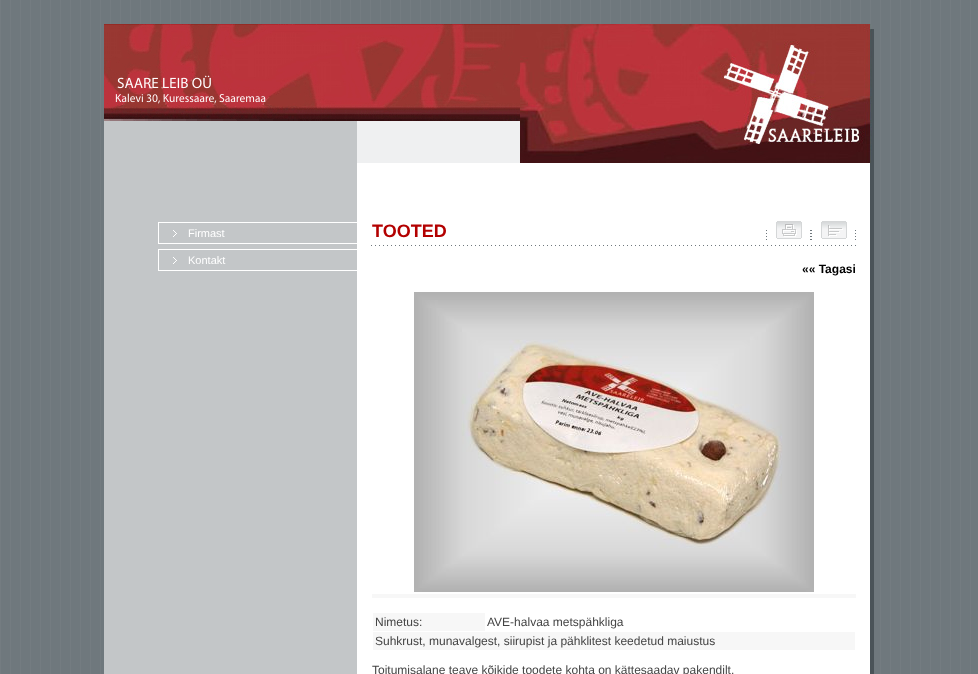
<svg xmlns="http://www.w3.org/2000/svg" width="978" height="674">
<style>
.a{font:11px Liberation Sans;fill:#fff}
.b{font:bold 18px Liberation Sans;fill:#b30000}
.c{font:bold 12px Liberation Sans;fill:#000}
.d{font:12px Liberation Sans;fill:#444}
</style>
<rect width="100%" height="100%" fill="#fff"/>
<image href="1.png" x="0" y="0" width="978" height="674"/>
<image href="2.png" x="104" y="24" width="416" height="97"/>
<image href="3.png" x="520" y="24" width="354" height="139"/>
<path fill="#c3c6c8" d="M104 121h253v553H104z"/>
<path fill="#eff0f1" d="M357 121h163v42H357z"/>
<path fill="#fff" d="M357 163h513v511H357z"/>
<path fill="#fff" d="M158 222h199v22H158z"/>
<path fill="#c3c6c8" d="M159 223h198v20H159z"/>
<image href="4.png" x="173" y="230" width="4" height="7"/>
<path fill="#fff" d="M158 249h199v22H158z"/>
<path fill="#c3c6c8" d="M159 250h198v20H159z"/>
<image href="4.png" x="173" y="257" width="4" height="7"/>
<image href="5.png" x="766" y="221" width="45" height="19"/>
<image href="6.png" x="811" y="221" width="45" height="19"/>
<image href="7.png" x="371" y="245" width="485" height="1"/>
<image href="8.png" x="414" y="292" width="400" height="300"/>
<path fill="#f7f7f7" d="M372 594h484v4H372z"/>
<path fill="#f7f7f7" d="M373 613h112v18H373z"/>
<path fill="#f7f7f7" d="M373 632h482v18H373z"/>
<path fill="#4a5358" d="M870 163h4v511H870z"/>
<text class="a" x="188" y="237">Firmast</text>
<text class="a" x="188" y="264">Kontakt</text>
<text class="b" x="372" y="237">TOOTED</text>
<text class="c" x="802" y="273">«« Tagasi</text>
<text class="d" x="375" y="626">Nimetus:</text>
<text class="d" x="487" y="626">AVE-halvaa metspähkliga</text>
<text class="d" x="375" y="645">Suhkrust, munavalgest, siirupist ja pähklitest keedetud maiustus</text>
<text class="d" x="372" y="674">Toitumisalane teave kõikide toodete kohta on kättesaadav pakendilt.</text>
</svg>
